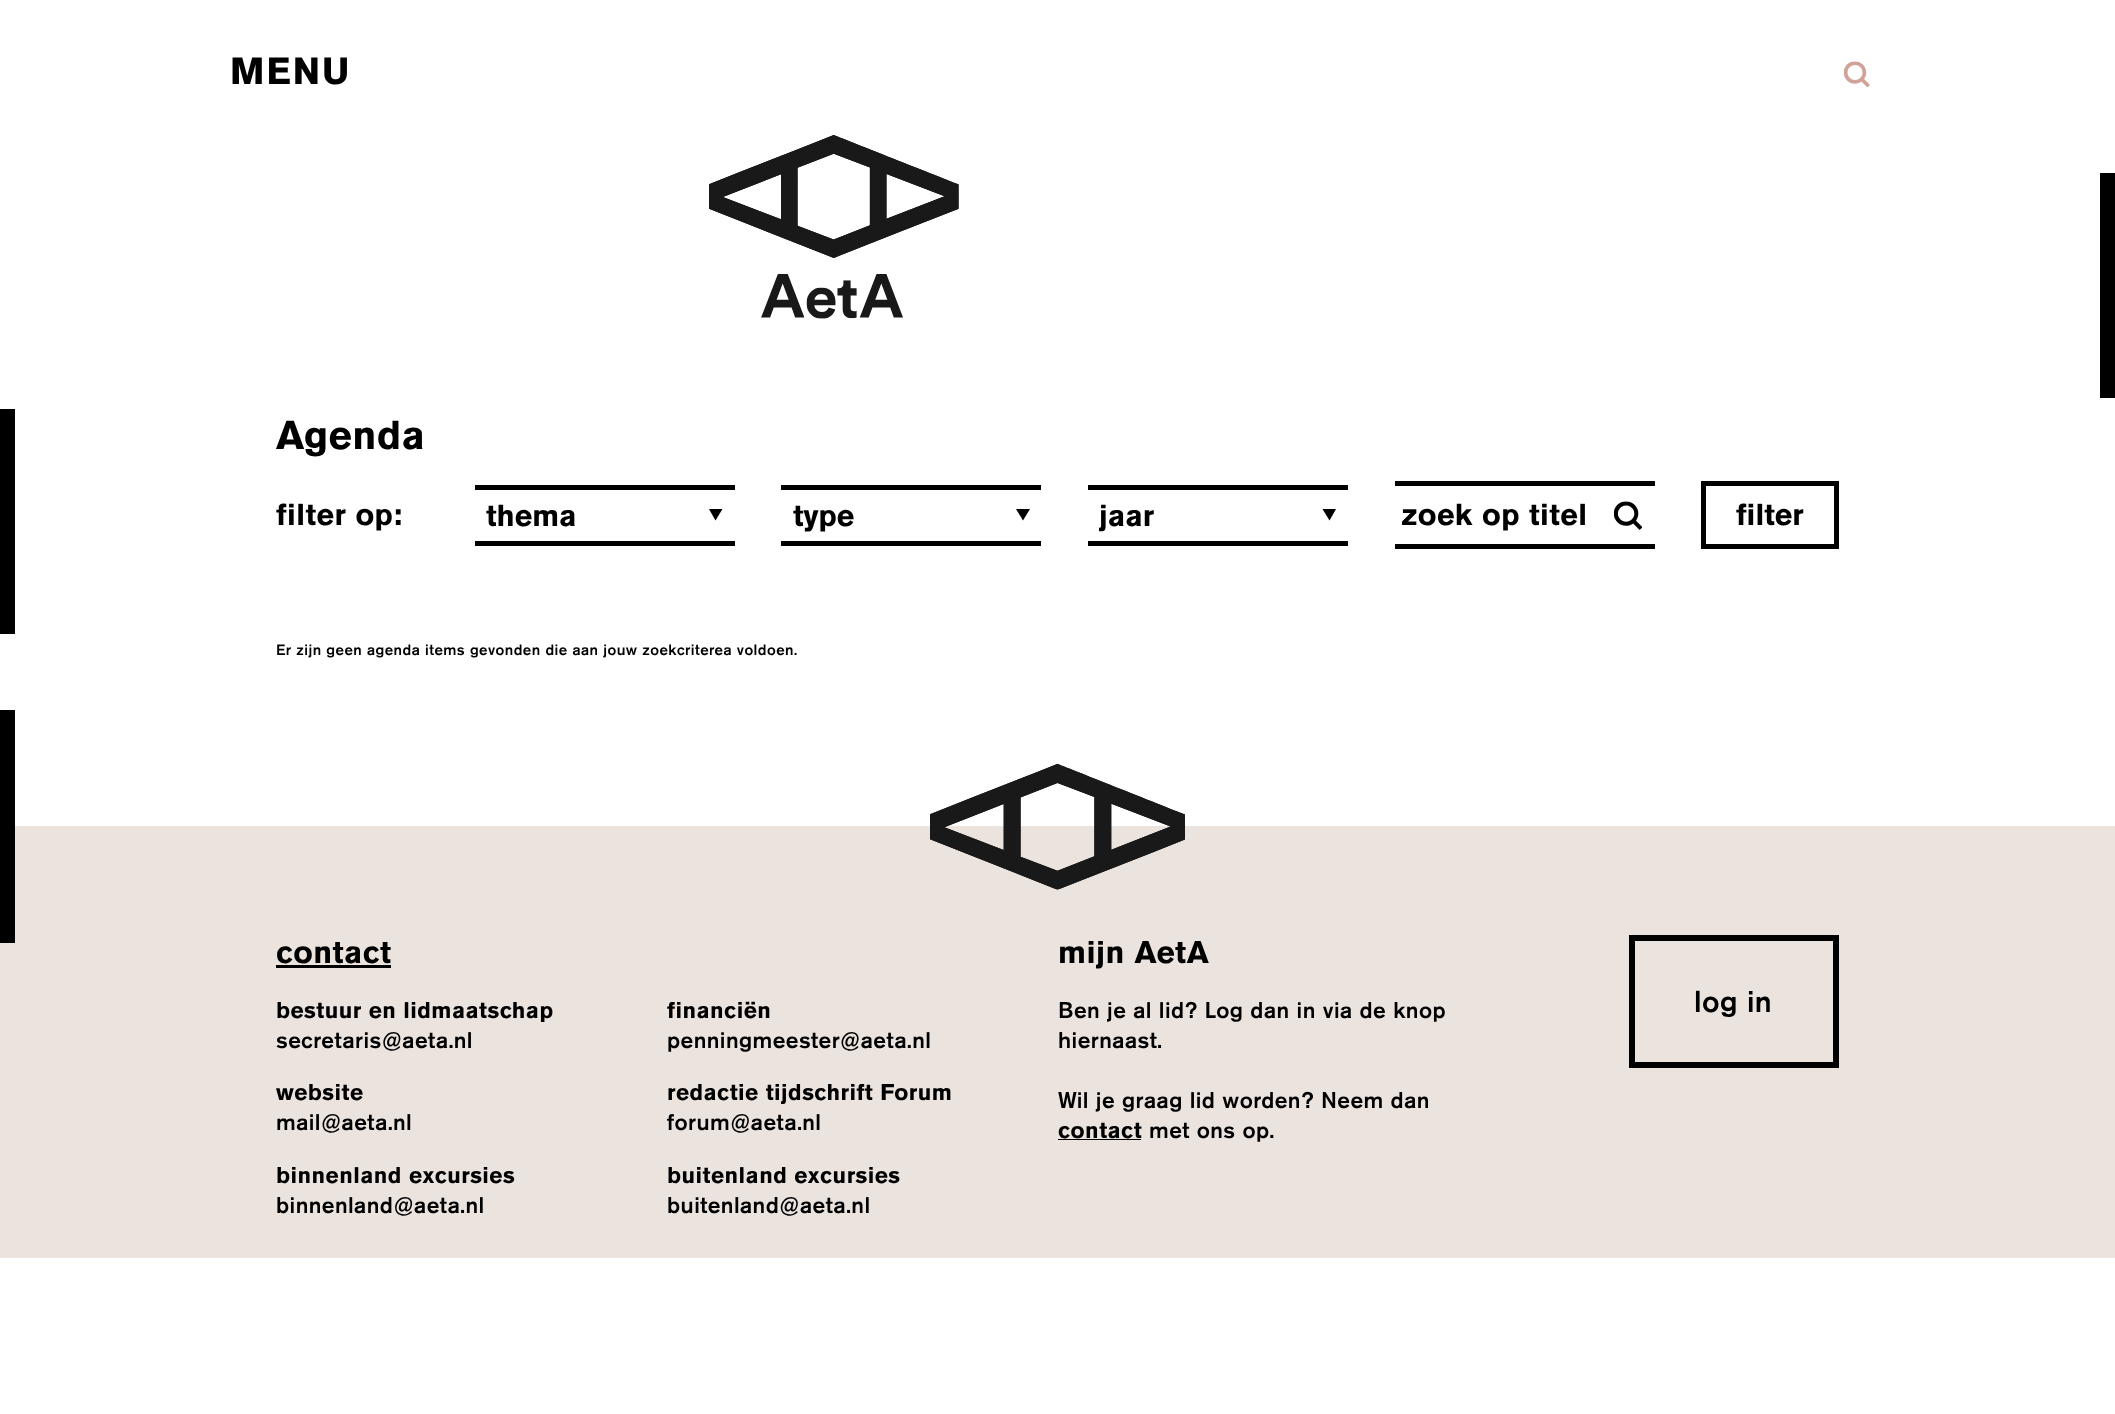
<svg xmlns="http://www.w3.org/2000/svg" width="2115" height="1414">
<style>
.a{font:bold 37.5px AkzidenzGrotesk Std;letter-spacing:0.45px;fill:#000}
.b{font:bold 40px AkzidenzGrotesk Std;letter-spacing:0.45px;fill:#000}
.c{font:bold 30px AkzidenzGrotesk Std;letter-spacing:0.45px;fill:#000}
.d{font:bold 30px AkzidenzGrotesk Std;fill:#000}
.e{font:500 15px AkzidenzGrotesk Std;letter-spacing:0.45px;fill:#000}
.f{font:bold 31.25px AkzidenzGrotesk Std;letter-spacing:0.45px;fill:#000}
.g{font:bold 22.5px AkzidenzGrotesk Std;letter-spacing:0.45px;fill:#000}
.h{font:500 22.5px AkzidenzGrotesk Std;letter-spacing:0.45px;fill:#000}
.i{font:500 30px AkzidenzGrotesk Std;letter-spacing:0.45px;fill:#000}
</style>
<rect width="100%" height="100%" fill="#fff"/>
<image href="1.png" x="1844" y="61" width="26" height="27"/>
<image href="2.png" x="709" y="135" width="250" height="184"/>
<path fill="#000" d="M2100 173h15v225H2100z"/>
<path fill="#000" d="M0 409h15v225H0z"/>
<path fill="#000" d="M715.5 520.5l7-11.5h-13.5z"/>
<path fill="#000" d="M475 485h260v5H475z"/>
<path fill="#000" d="M475 541h260v5H475z"/>
<path fill="#000" d="M1023 520.5l7-11.5h-14z"/>
<path fill="#000" d="M781 485h260v5H781z"/>
<path fill="#000" d="M781 541h260v5H781z"/>
<path fill="#000" d="M1329.5 520.5l6.5-11.5h-13.5z"/>
<path fill="#000" d="M1088 485h260v5H1088z"/>
<path fill="#000" d="M1088 541h260v5H1088z"/>
<image href="3.png" x="1614" y="501" width="29" height="29"/>
<path fill="#000" d="M1395 481h260v5H1395z"/>
<path fill="#000" d="M1395 544h260v5H1395z"/>
<path fill="none" stroke="#000" stroke-width="5" d="M1703.5 483.5h133v63H1703.5z"/>
<path fill="#ebe3dd" d="M0 826h2115v432H0z"/>
<path fill="#000" d="M0 710h15v233H0z"/>
<image href="4.png" x="930" y="764" width="255" height="126"/>
<path fill="#000" d="M276 965h115v3H276z"/>
<path fill="#000" d="M1058 1139h83v1H1058z"/>
<path fill="none" stroke="#000" stroke-width="6" d="M1632 938h204v127H1632z"/>
<text class="a" x="230" y="84">MENU</text>
<text class="b" x="276" y="449">Agenda</text>
<text class="c" x="276" y="525">filter op:</text>
<text class="d" x="486" y="526">thema</text>
<text class="d" x="793" y="526">type</text>
<text class="d" x="1099" y="526">jaar</text>
<text class="c" x="1401" y="525">zoek op titel</text>
<text class="d" x="1736" y="525">filter</text>
<text class="e" x="276" y="655">Er zijn geen agenda items gevonden die aan jouw zoekcriterea voldoen.</text>
<text class="f" x="276" y="963">contact</text>
<text class="g" x="276" y="1018">bestuur en lidmaatschap</text>
<text class="h" x="276" y="1048">secretaris@aeta.nl</text>
<text class="g" x="667" y="1018">financiën</text>
<text class="h" x="667" y="1048">penningmeester@aeta.nl</text>
<text class="g" x="276" y="1100">website</text>
<text class="h" x="276" y="1130">mail@aeta.nl</text>
<text class="g" x="667" y="1100">redactie tijdschrift Forum</text>
<text class="h" x="667" y="1130">forum@aeta.nl</text>
<text class="g" x="276" y="1183">binnenland excursies</text>
<text class="h" x="276" y="1213">binnenland@aeta.nl</text>
<text class="g" x="667" y="1183">buitenland excursies</text>
<text class="h" x="667" y="1213">buitenland@aeta.nl</text>
<text class="f" x="1058" y="963">mijn AetA</text>
<text class="h" x="1058" y="1018">Ben je al lid? Log dan in via de knop</text>
<text class="h" x="1058" y="1048">hiernaast.</text>
<text class="h" x="1058" y="1108">Wil je graag lid worden? Neem dan</text>
<text class="g" x="1058" y="1138">contact</text>
<text class="h" x="1149" y="1138">met ons op.</text>
<text class="i" x="1694" y="1012">log in</text>
</svg>
